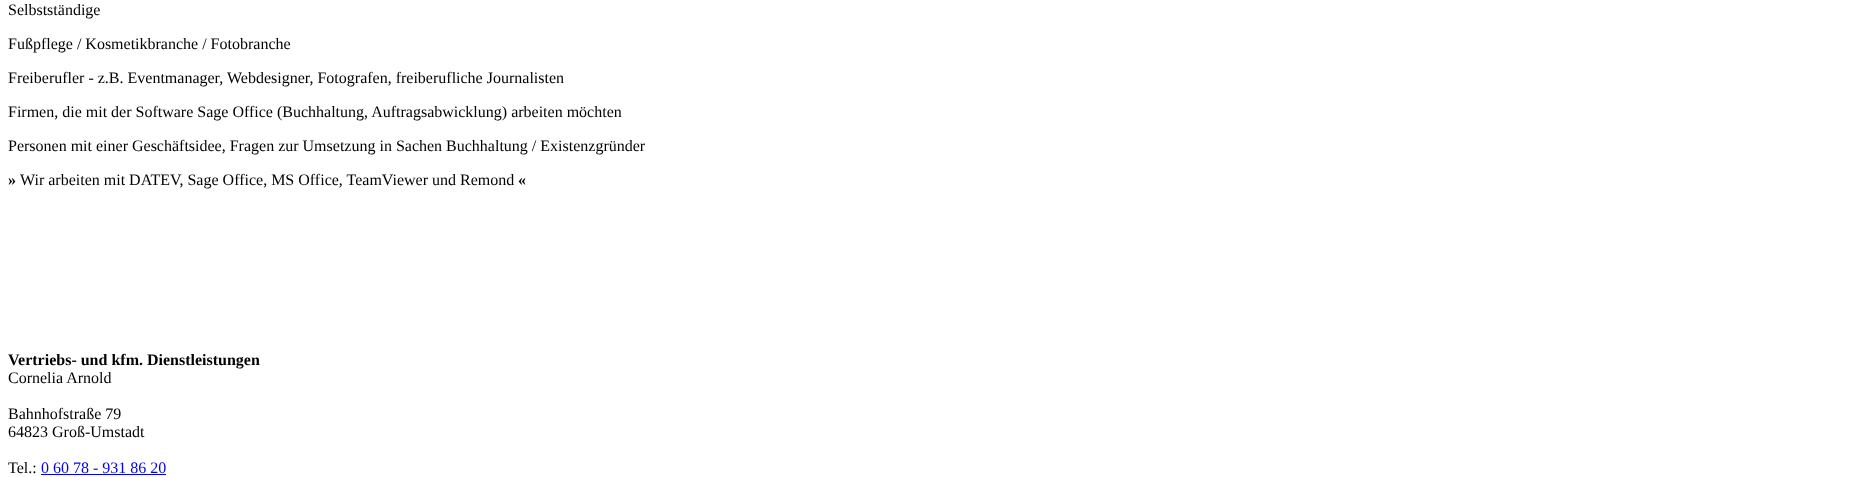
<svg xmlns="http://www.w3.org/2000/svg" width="1871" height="477">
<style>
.a{font:16px Liberation Serif;fill:#000}
.b{font:bold 16px Liberation Serif;fill:#000}
.c{font:16px Liberation Serif;fill:#00e}
</style>
<rect width="100%" height="100%" fill="#fff"/>
<path fill="#00e" d="M41 474h125v1H41z"/>
<text class="a" x="8" y="15">Selbstständige</text>
<text class="a" x="8" y="49">Fußpflege / Kosmetikbranche / Fotobranche</text>
<text class="a" x="8" y="83">Freiberufler - z.B. Eventmanager, Webdesigner, Fotografen, freiberufliche Journalisten</text>
<text class="a" x="8" y="117">Firmen, die mit der Software Sage Office (Buchhaltung, Auftragsabwicklung) arbeiten möchten</text>
<text class="a" x="8" y="151">Personen mit einer Geschäftsidee, Fragen zur Umsetzung in Sachen Buchhaltung / Existenzgründer</text>
<text class="b" x="8" y="185">»</text>
<text class="a" x="20" y="185">Wir arbeiten mit DATEV, Sage Office, MS Office, TeamViewer und Remond</text>
<text class="b" x="518" y="185">«</text>
<text class="b" x="8" y="365">Vertriebs- und kfm. Dienstleistungen</text>
<text class="a" x="8" y="383">Cornelia Arnold</text>
<text class="a" x="8" y="419">Bahnhofstraße 79</text>
<text class="a" x="8" y="437">64823 Groß-Umstadt</text>
<text class="a" x="8" y="473">Tel.:</text>
<text class="c" x="41" y="473">0 60 78 - 931 86 20</text>
</svg>
